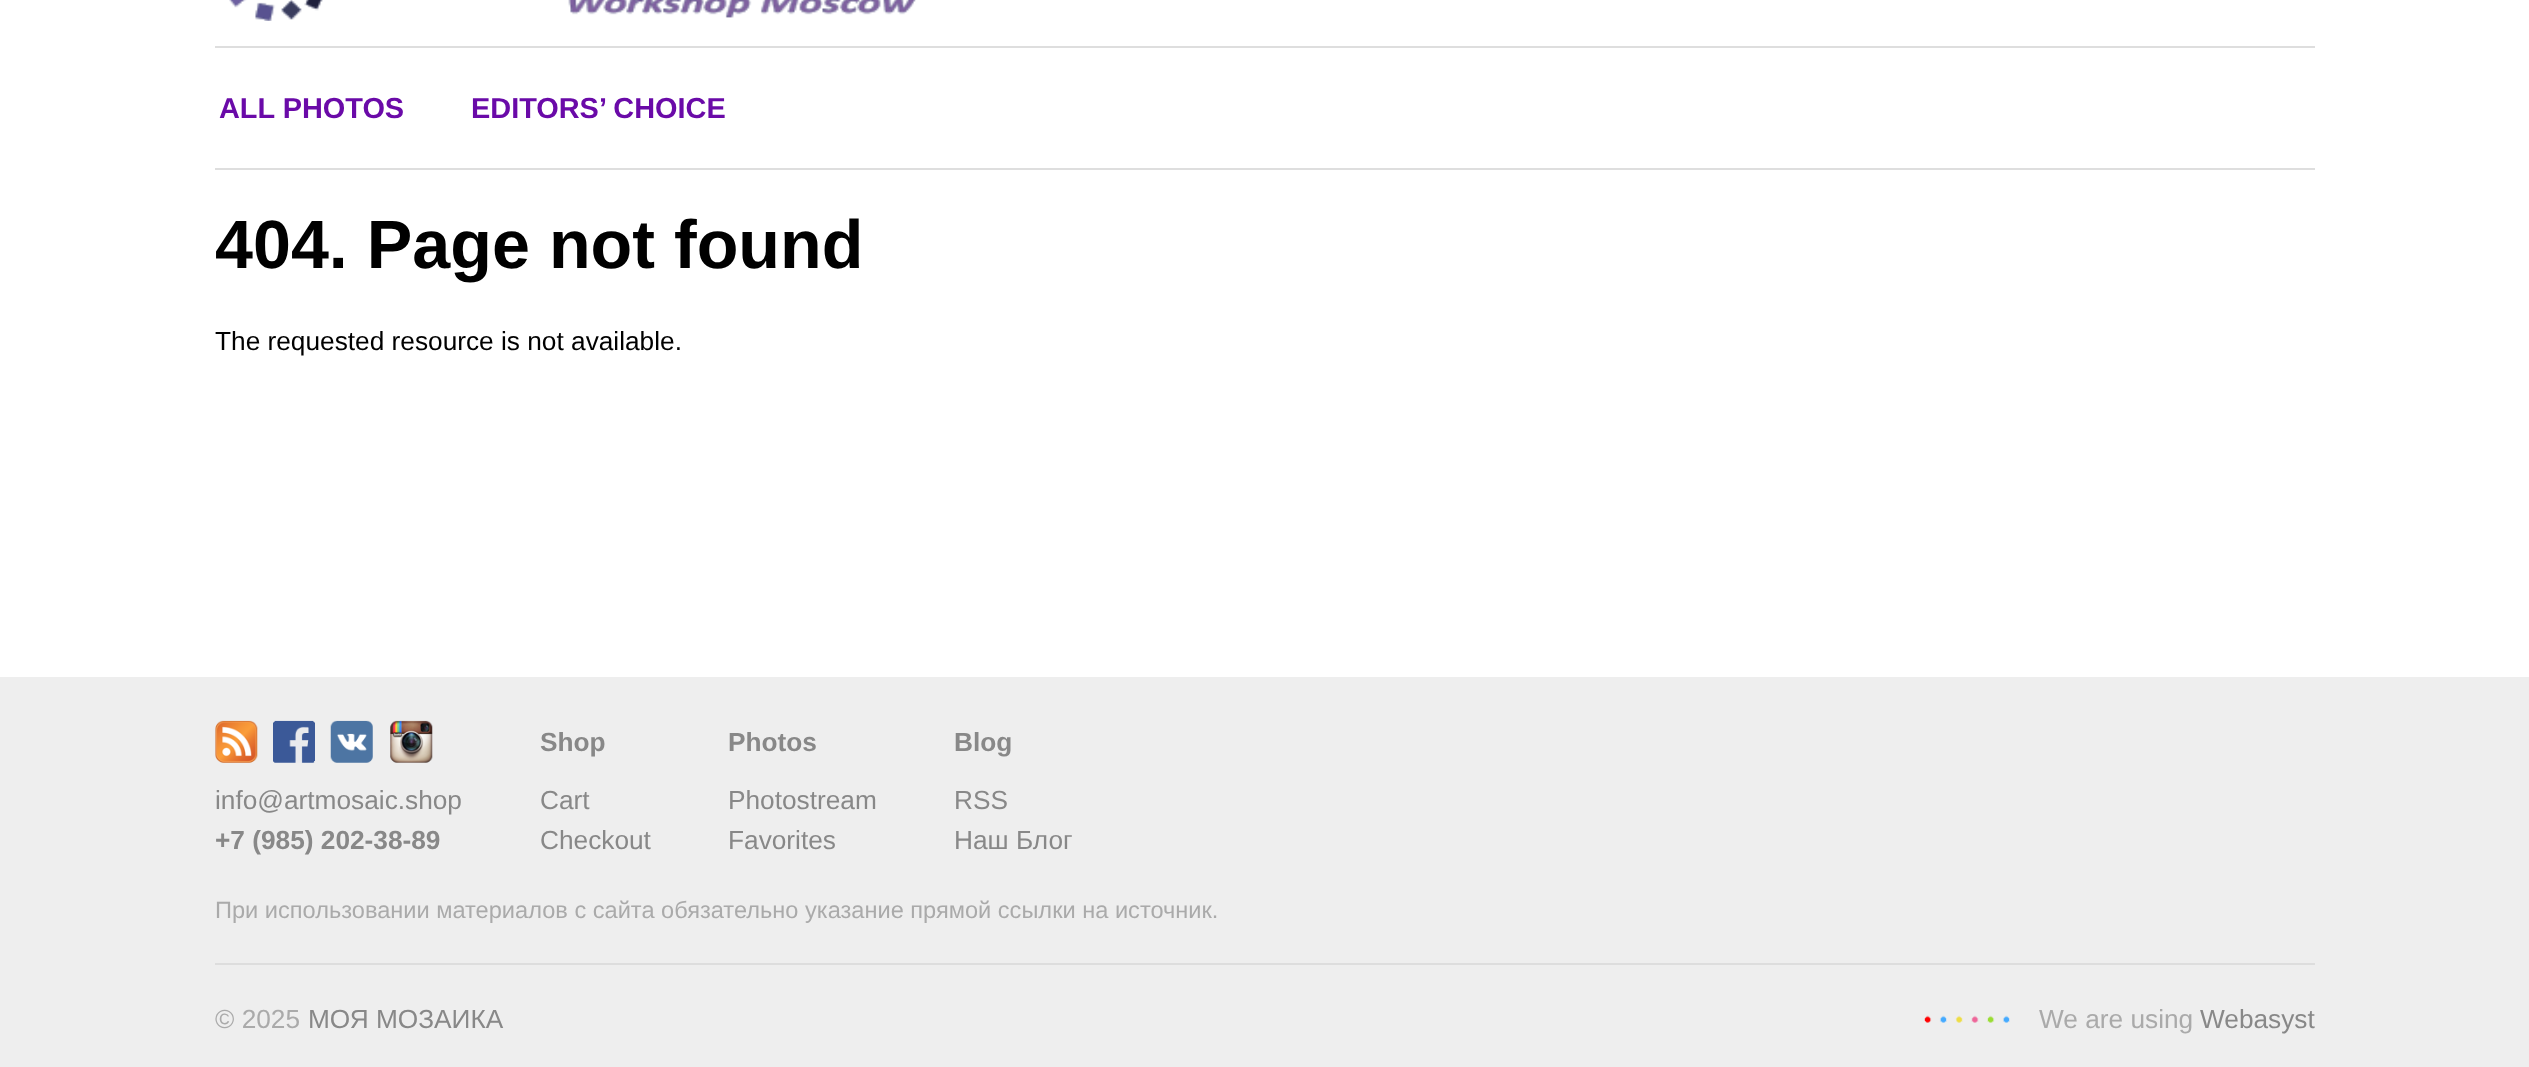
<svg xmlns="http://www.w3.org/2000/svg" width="2529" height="1067">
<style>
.a{font:bold 28.9px Liberation Sans;fill:#6a0aa8}
.b{font:bold 68.25px Liberation Sans;fill:#000}
.c{font:26.25px Liberation Sans;fill:#000}
.d{font:26.25px Liberation Sans;fill:#888}
.e{font:bold 26.25px Liberation Sans;fill:#888}
.f{font:23.6px Liberation Sans;fill:#aaa}
.g{font:26.25px Liberation Sans;fill:#aaa}
</style>
<rect width="100%" height="100%" fill="#eee"/>
<path fill="#fff" d="M0 0h2529v677H0z"/>
<image href="1.png" x="229" y="0" width="687" height="21"/>
<path fill="#dedede" d="M215 46h2100v2H215z"/>
<path fill="#dedede" d="M215 168h2100v2H215z"/>
<image href="2.png" x="215" y="720" width="43" height="43"/>
<image href="3.png" x="273" y="720" width="42" height="43"/>
<image href="4.png" x="330" y="720" width="43" height="43"/>
<image href="5.png" x="390" y="720" width="43" height="43"/>
<path fill="#ddd" d="M215 963h2100v2H215z"/>
<image href="6.png" x="1924" y="1015" width="86" height="8"/>
<text class="a" x="219" y="118">ALL PHOTOS</text>
<text class="a" x="471" y="118">EDITORS’ CHOICE</text>
<text class="b" x="215" y="268">404. Page not found</text>
<text class="c" x="215" y="350">The requested resource is not available.</text>
<text class="d" x="215" y="809">info@artmosaic.shop</text>
<text class="e" x="215" y="849">+7 (985) 202-38-89</text>
<text class="e" x="540" y="751">Shop</text>
<text class="d" x="540" y="809">Cart</text>
<text class="d" x="540" y="849">Checkout</text>
<text class="e" x="728" y="751">Photos</text>
<text class="d" x="728" y="809">Photostream</text>
<text class="d" x="728" y="849">Favorites</text>
<text class="e" x="954" y="751">Blog</text>
<text class="d" x="954" y="809">RSS</text>
<text class="d" x="954" y="849">Наш Блог</text>
<text class="f" x="215" y="918">При использовании материалов с сайта обязательно указание прямой ссылки на источник.</text>
<text class="g" x="215" y="1028">© 2025</text>
<text class="d" x="308" y="1028">МОЯ МОЗАИКА</text>
<text class="g" x="2039" y="1028">We are using</text>
<text class="d" x="2200" y="1028">Webasyst</text>
</svg>
